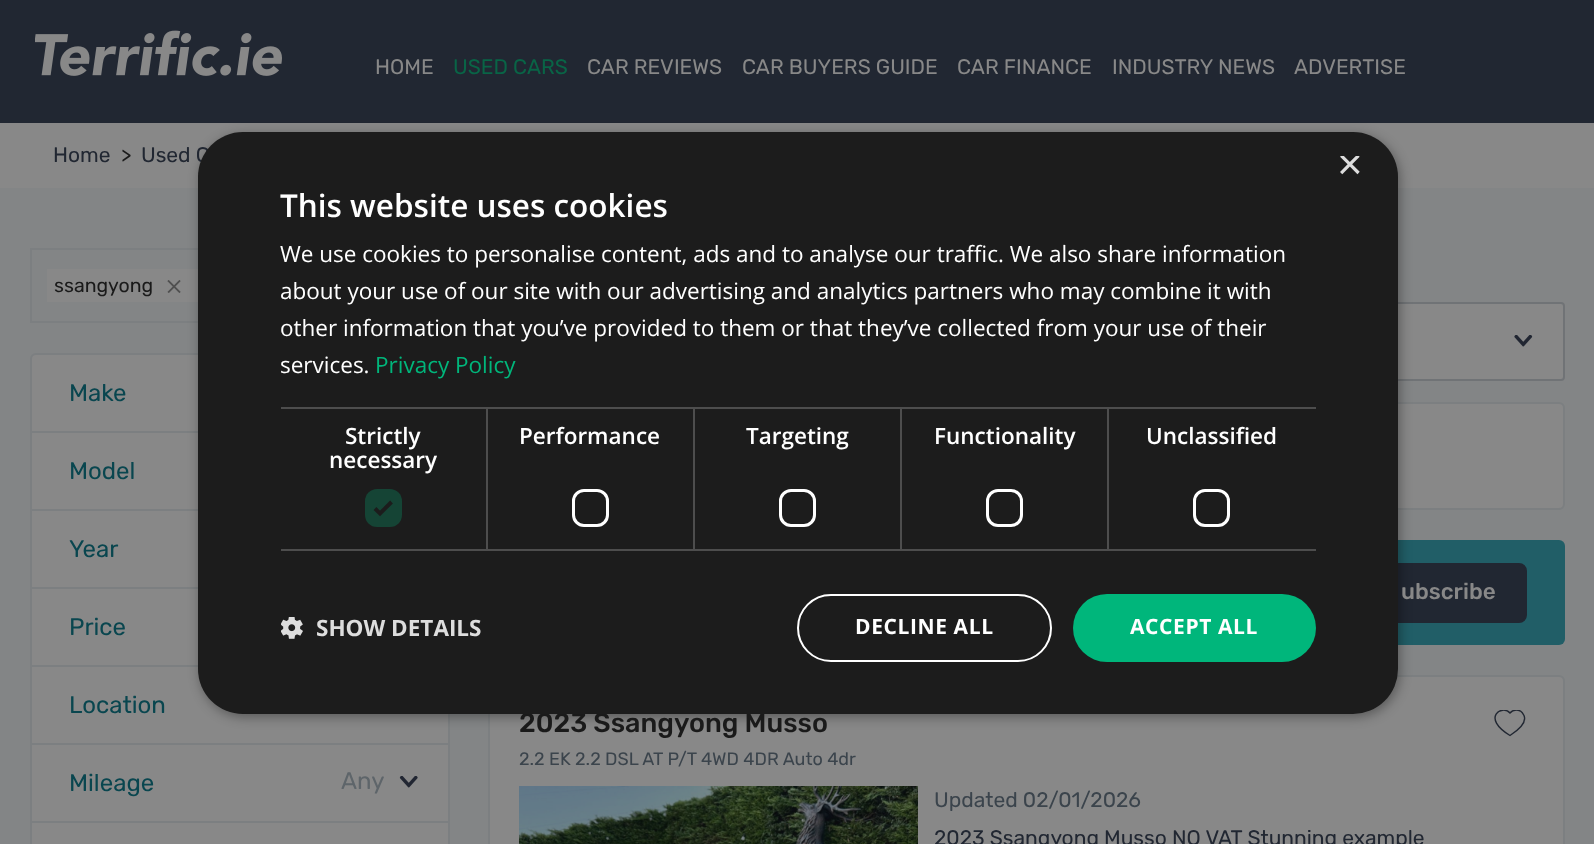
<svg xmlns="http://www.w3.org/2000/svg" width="1594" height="844">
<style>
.a{font:21px Rubik;fill:#888}
.b{font:21px Rubik;fill:#096446}
.c{font:21px Rubik;fill:#212732}
.d{font:21px Rubik;fill:#1a1a1a}
.e{font:19.5px Rubik;fill:#1a1a1a}
.f{font:24px Rubik;fill:#09464f}
.g{font:24px Rubik;fill:#5e656a}
.h{font:500 22.5px Rubik;fill:#888}
.i{font:500 27px Rubik;fill:#1a1a1a}
.j{font:18px Rubik;fill:#3b444c}
.k{font:21px Rubik;fill:#3b444c}
.l{font:44px Liberation Sans;fill:#ddd}
.m{font:600 31.5px Open Sans;fill:#fff}
.n{font:22.5px Open Sans;fill:#fff}
.o{font:22.5px Open Sans;fill:#00b67b}
.p{font:600 22.5px Open Sans;fill:#fff}
.q{font:bold 22.5px Open Sans;fill:#ddd}
.r{font:bold 21px Open Sans;letter-spacing:0.6px;fill:#fff}
</style>
<defs>
<clipPath id="clip1"><path d="M1494 710h32v27H1494z"/></clipPath>
<clipPath id="clip2"><path d="M1338 156h23v23H1338z"/></clipPath>
</defs>
<rect width="100%" height="100%" fill="#888"/>
<path fill="#212732" d="M0 0h1594v123H0z"/>
<image href="1.png" x="35" y="30" width="247" height="46"/>
<path fill="#838586" d="M0 188h1594v656H0z"/>
<path fill="none" stroke="#7c7f81" stroke-width="2" d="M31 249h418v73H31z"/>
<path fill="#888" d="M47 269h151v33H47z"/>
<image href="2.png" x="167" y="280" width="14" height="13"/>
<rect fill="#888" stroke="#7c7f81" stroke-width="2" x="31" y="354" width="418" height="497" rx="5"/>
<path fill="#7c7f81" d="M32 431h166v2H32z"/>
<path fill="#7c7f81" d="M32 509h166v2H32z"/>
<path fill="#7c7f81" d="M32 587h166v2H32z"/>
<path fill="#7c7f81" d="M32 665h166v2H32z"/>
<path fill="#7c7f81" d="M32 743h417v2H32z"/>
<path fill="#7c7f81" d="M32 821h417v2H32z"/>
<image href="3.png" x="399" y="776" width="19" height="12"/>
<rect fill="#888" x="1137" y="302" width="428" height="79" rx="4"/>
<image href="4.png" x="1514" y="335" width="19" height="12"/>
<rect fill="none" stroke="#707376" stroke-width="2" x="1138" y="303" width="426" height="77" rx="3"/>
<rect fill="#888" stroke="#7c7f81" stroke-width="2" x="489" y="403" width="1075" height="106" rx="5"/>
<rect fill="#215e67" x="488" y="540" width="1077" height="105" rx="6"/>
<rect fill="#212732" stroke="#212732" stroke-width="2" x="1356" y="564" width="170" height="58" rx="7"/>
<rect fill="#888" stroke="#7c7f81" stroke-width="2" x="489" y="676" width="1075" height="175" rx="5"/>
<g clip-path="url(#clip1)">
<path fill="none" stroke="#212732" stroke-width="1.4" d="M1520.5 711c-4-1.5-8-1-10.5 2c-7.5-9-29.5 4.5 0 22.5c5.5-3.5 17.5-11.5 14-20c-1-2-2-3.5-3.5-4.5"/>
</g>
<image href="5.png" x="519" y="786" width="399" height="58"/>
<rect fill="#00000059" filter="blur(6px)" x="200" y="135" width="1200" height="582" rx="45"/>
<text class="a" x="375" y="74">HOME</text>
<text class="b" x="453" y="74">USED CARS</text>
<text class="a" x="587" y="74">CAR REVIEWS</text>
<text class="a" x="742" y="74">CAR BUYERS GUIDE</text>
<text class="a" x="957" y="74">CAR FINANCE</text>
<text class="a" x="1112" y="74">INDUSTRY NEWS</text>
<text class="a" x="1294" y="74">ADVERTISE</text>
<text class="c" x="53" y="162">Home</text>
<text class="d" x="121" y="162">&gt;</text>
<text class="c" x="141" y="162">Used C</text>
<text class="e" x="54" y="292">ssangyong</text>
<text class="f" x="69" y="401">Make</text>
<text class="f" x="69" y="479">Model</text>
<text class="f" x="69" y="557">Year</text>
<text class="f" x="69" y="635">Price</text>
<text class="f" x="69" y="713">Location</text>
<text class="f" x="69" y="791">Mileage</text>
<text class="g" x="341" y="789">Any</text>
<text class="h" x="1401" y="599">ubscribe</text>
<text class="i" x="519" y="732">2023 Ssangyong Musso</text>
<text class="j" x="519" y="765">2.2 EK 2.2 DSL AT P/T 4WD 4DR Auto 4dr</text>
<text class="k" x="934" y="807">Updated 02/01/2026</text>
<text class="c" x="934" y="845">2023 Ssangyong Musso NO VAT Stunning example</text>
<rect fill="#1c1c1c" x="198" y="132" width="1200" height="582" rx="45"/>
<g clip-path="url(#clip2)">
<text class="l" x="1337" y="179">×</text>
</g>
<text class="m" x="280" y="217">This website uses cookies</text>
<text class="n" x="280" y="262">We use cookies to personalise content, ads and to analyse our traffic. We also share information</text>
<text class="n" x="280" y="299">about your use of our site with our advertising and analytics partners who may combine it with</text>
<text class="n" x="280" y="336">other information that you’ve provided to them or that they’ve collected from your use of their</text>
<text class="n" x="280" y="373">services.</text>
<text class="o" x="375" y="373">Privacy Policy</text>
<path fill="#4d4d4d" d="M281 407h1035v2H281z"/>
<path fill="#4d4d4d" d="M486 407h2v144H486z"/>
<path fill="#4d4d4d" d="M281 549h207v2H281z"/>
<text class="p" x="345" y="444">Strictly</text>
<text class="p" x="329" y="468">necessary</text>
<rect fill="#154435" x="365" y="489" width="37" height="38" rx="12"/>
<path fill="none" stroke="#1c1c1c" stroke-width="3.9" d="M375 508.5l5 5l11.5-11.5"/>
<path fill="#4d4d4d" d="M693 407h2v144H693z"/>
<path fill="#4d4d4d" d="M488 549h207v2H488z"/>
<text class="p" x="519" y="444">Performance</text>
<rect fill="none" stroke="#fff" stroke-width="3" x="573.5" y="490.5" width="34" height="35" rx="10.5"/>
<path fill="#4d4d4d" d="M900 407h2v144H900z"/>
<path fill="#4d4d4d" d="M695 549h207v2H695z"/>
<text class="p" x="746" y="444">Targeting</text>
<rect fill="none" stroke="#fff" stroke-width="3" x="780.5" y="490.5" width="34" height="35" rx="10.5"/>
<path fill="#4d4d4d" d="M1107 407h2v144H1107z"/>
<path fill="#4d4d4d" d="M902 549h414v2H902z"/>
<text class="p" x="934" y="444">Functionality</text>
<rect fill="none" stroke="#fff" stroke-width="3" x="987.5" y="490.5" width="34" height="35" rx="10.5"/>
<text class="p" x="1146" y="444">Unclassified</text>
<rect fill="none" stroke="#fff" stroke-width="3" x="1194.5" y="490.5" width="34" height="35" rx="10.5"/>
<image href="6.png" x="281" y="617" width="22" height="22"/>
<text class="q" x="316" y="636">SHOW DETAILS</text>
<rect fill="none" stroke="#fff" stroke-width="2" x="798" y="595" width="253" height="66" rx="33"/>
<text class="r" x="855" y="634">DECLINE ALL</text>
<rect fill="#00b67b" x="1073" y="594" width="243" height="68" rx="34"/>
<text class="r" x="1130" y="634">ACCEPT ALL</text>
</svg>
